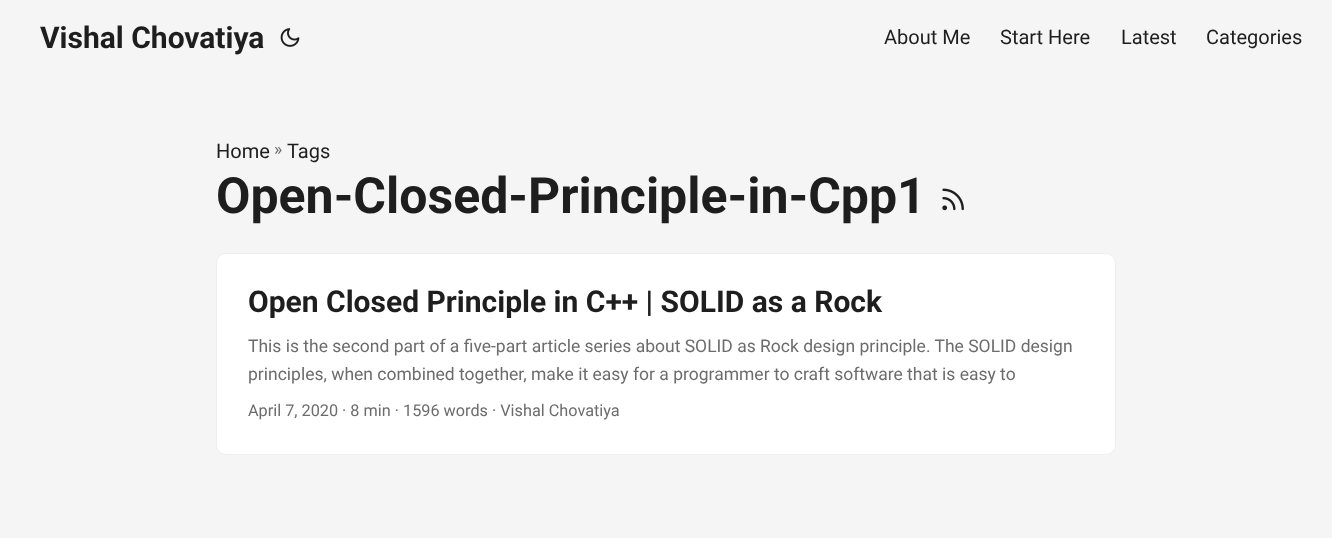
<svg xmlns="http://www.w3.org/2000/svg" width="1332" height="538">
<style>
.a{font:bold 30px Roboto;fill:#1e1e1e}
.b{font:20px Roboto;fill:#1e1e1e}
.c{font:17.5px Roboto;fill:#6c6c6c}
.d{font:bold 50px Roboto;fill:#1e1e1e}
.e{font:16.25px Roboto;fill:#6c6c6c}
</style>
<rect width="100%" height="100%" fill="#f5f5f5"/>
<image href="1.png" x="280" y="28" width="20" height="19"/>
<image href="2.png" x="942" y="188" width="22" height="23"/>
<rect fill="#fff" stroke="#eee" x="216.5" y="253.5" width="899" height="201" rx="9.5"/>
<text class="a" x="40" y="48">Vishal Chovatiya</text>
<text class="b" x="884" y="44">About Me</text>
<text class="b" x="1000" y="44">Start Here</text>
<text class="b" x="1121" y="44">Latest</text>
<text class="b" x="1206" y="44">Categories</text>
<text class="b" x="216" y="158">Home</text>
<text class="c" x="274" y="155">»</text>
<text class="b" x="287" y="158">Tags</text>
<text class="d" x="216" y="213">Open-Closed-Principle-in-Cpp1</text>
<text class="a" x="248" y="312">Open Closed Principle in C++ | SOLID as a Rock</text>
<text class="c" x="248" y="352">This is the second part of a five-part article series about SOLID as Rock design principle. The SOLID design</text>
<text class="c" x="248" y="380">principles, when combined together, make it easy for a programmer to craft software that is easy to</text>
<text class="e" x="248" y="416">April 7, 2020 · 8 min · 1596 words · Vishal Chovatiya</text>
</svg>
